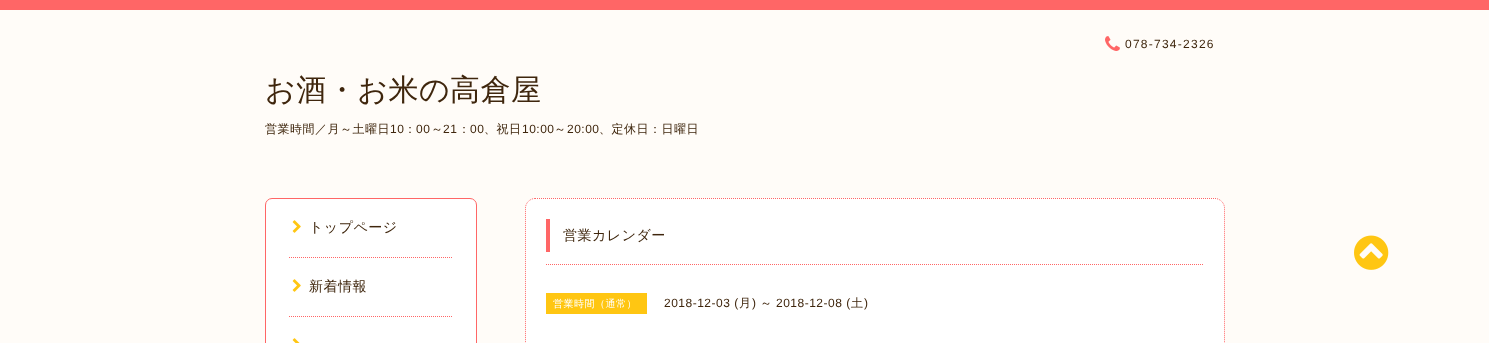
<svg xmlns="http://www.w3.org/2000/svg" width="1489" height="343">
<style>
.a{font:12px Liberation Sans;letter-spacing:1.25px;fill:#3f260d}
.b{font:500 30px WenQuanYi Zen Hei;letter-spacing:0.5px;fill:#3f260d}
.c{font:500 12px WenQuanYi Zen Hei;letter-spacing:0.5px;fill:#3f260d}
.d{font:12px Liberation Sans;letter-spacing:0.5px;fill:#3f260d}
.e{font:500 14px WenQuanYi Zen Hei;letter-spacing:0.5px;fill:#3f260d}
.f{font:500 10px WenQuanYi Zen Hei;letter-spacing:0.5px;fill:#fff}
</style>
<rect width="100%" height="100%" fill="#fffcf8"/>
<path fill="#f66" d="M0 0h1489v10H0z"/>
<image href="1.png" x="1105" y="36" width="15" height="15"/>
<rect fill="#fff" stroke="#f66" x="265.5" y="198.5" width="211" height="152" rx="6.5"/>
<path fill="none" stroke="#f66" stroke-dasharray="1 1" d="M289 257.5h164"/>
<image href="2.png" x="292" y="220" width="9" height="13"/>
<path fill="none" stroke="#f66" stroke-dasharray="1 1" d="M289 316.5h164"/>
<image href="2.png" x="292" y="279" width="9" height="13"/>
<image href="3.png" x="292" y="338" width="8" height="5"/>
<rect fill="#fff" x="525" y="198" width="700" height="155" rx="10"/>
<path fill="none" stroke="#f66" stroke-dasharray="1 1" d="M535 198.5h680c5 0 9.5 4.5 9.5 9.5v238c0 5-4.5 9.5-9.5 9.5h-680c-5 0-9.5-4.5-9.5-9.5v-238c0-5 4.5-9.5 9.5-9.5z"/>
<path fill="#f66" d="M546 219h4v33H546z"/>
<path fill="none" stroke="#f66" stroke-dasharray="1 1" d="M546 264.5h658"/>
<path fill="#ffc612" d="M546 293h101v21H546z"/>
<image href="4.png" x="1354" y="235" width="35" height="35"/>
<text class="a" x="1125" y="48">078-734-2326</text>
<text class="b" x="265" y="100">お酒・お米の高倉屋</text>
<text class="c" x="265" y="133">営業時間／月～土曜日</text>
<text class="d" x="390" y="133">10</text>
<text class="c" x="404" y="133">：</text>
<text class="d" x="416" y="133">00</text>
<text class="c" x="431" y="133">～</text>
<text class="d" x="443" y="133">21</text>
<text class="c" x="458" y="133">：</text>
<text class="d" x="470" y="133">00</text>
<text class="c" x="484" y="133">、祝日</text>
<text class="d" x="522" y="133">10:00</text>
<text class="c" x="554" y="133">～</text>
<text class="d" x="567" y="133">20:00</text>
<text class="c" x="599" y="133">、定休日：日曜日</text>
<text class="e" x="309" y="232">トップページ</text>
<text class="e" x="309" y="291">新着情報</text>
<text class="e" x="563" y="240">営業カレンダー</text>
<text class="f" x="553" y="307">営業時間（通常）</text>
<text class="d" x="664" y="307">2018-12-03 (</text>
<text class="c" x="739" y="307">月</text>
<text class="d" x="752" y="307">)</text>
<text class="c" x="760" y="307">～</text>
<text class="d" x="776" y="307">2018-12-08 (</text>
<text class="c" x="851" y="307">土</text>
<text class="d" x="864" y="307">)</text>
</svg>
